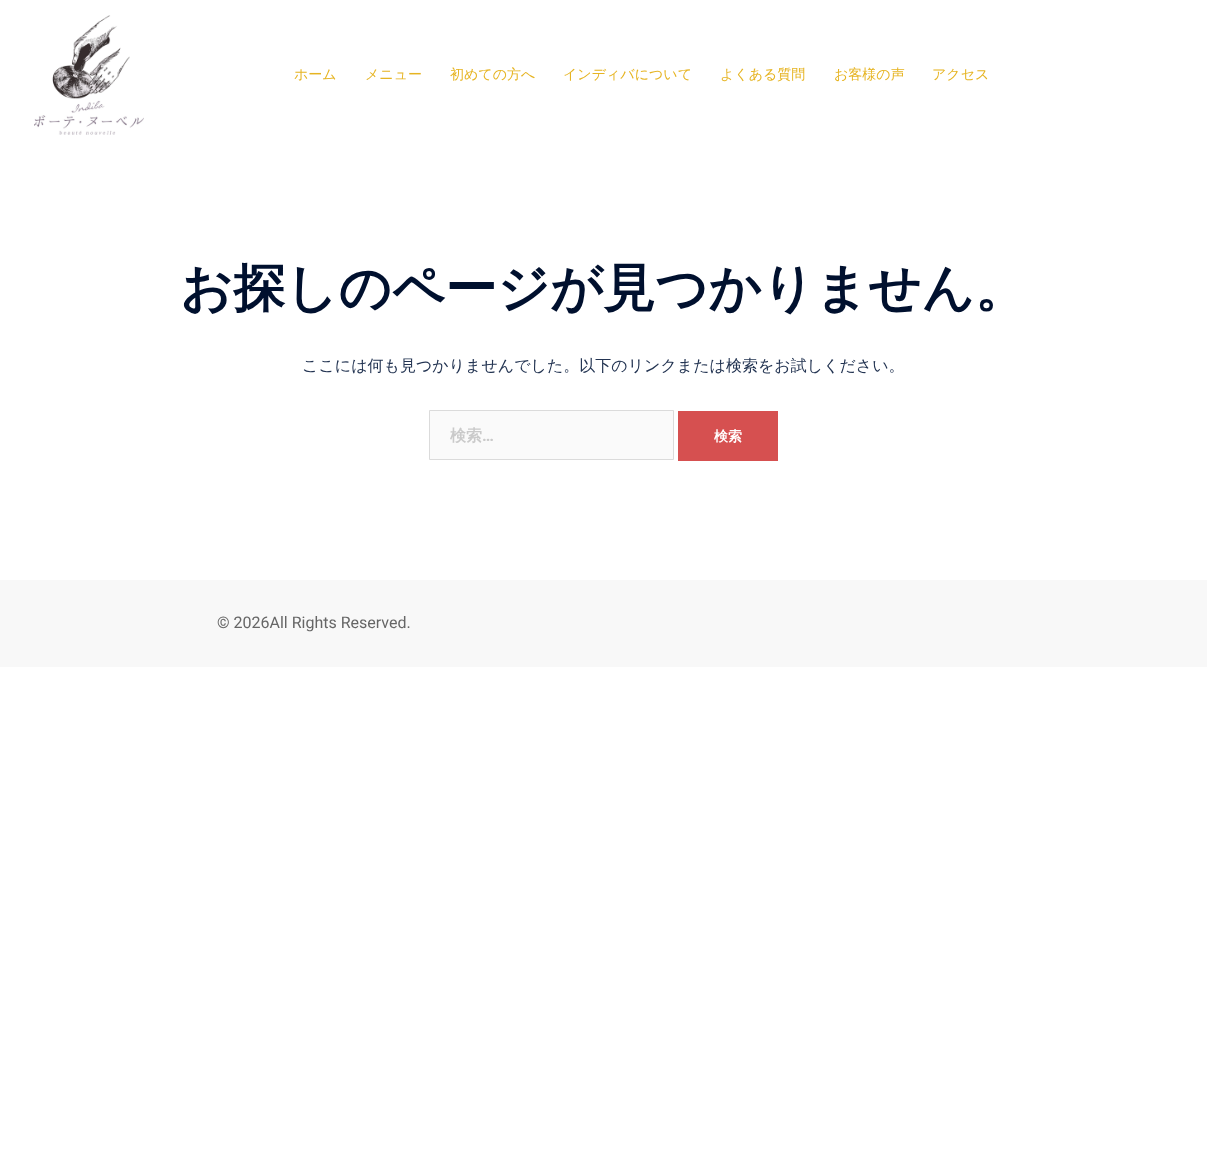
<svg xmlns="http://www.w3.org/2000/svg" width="1207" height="1149">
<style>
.a{font:500 14px WenQuanYi Zen Hei;fill:#e6b422}
.b{font:bold 52px WenQuanYi Zen Hei;fill:#00102e}
.c{font:500 16px WenQuanYi Zen Hei;fill:#233452}
.d{font:bold 16px WenQuanYi Zen Hei;fill:#cacaca}
.e{font:bold 16px Roboto;fill:#cacaca}
.f{font:bold 14px WenQuanYi Zen Hei;fill:#fff}
.g{font:16px Roboto;fill:#666}
</style>
<rect width="100%" height="100%" fill="#fff"/>
<image href="1.png" x="34" y="15" width="110" height="120"/>
<path fill="#fafafa" stroke="#dbdbdb" d="M429.5 410.5h244v49H429.5z"/>
<path fill="#d65050" d="M678 411h100v50H678z"/>
<path fill="#f8f8f8" d="M0 580h1207v87H0z"/>
<text class="a" x="294" y="79">ホーム</text>
<text class="a" x="365" y="79">メニュー</text>
<text class="a" x="450" y="79">初めての方へ</text>
<text class="a" x="563" y="79">インディバについて</text>
<text class="a" x="720" y="79">よくある質問</text>
<text class="a" x="834" y="79">お客様の声</text>
<text class="a" x="932" y="79">アクセス</text>
<text class="b" x="180" y="306">お探しのページが見つかりません。</text>
<text class="c" x="302" y="371">ここには何も見つかりませんでした。以下のリンクまたは検索をお試しください。</text>
<text class="d" x="450" y="441">検索</text>
<text class="e" x="482" y="441">…</text>
<text class="f" x="714" y="441">検索</text>
<text class="g" x="217" y="628">© 2026All Rights Reserved.</text>
</svg>
